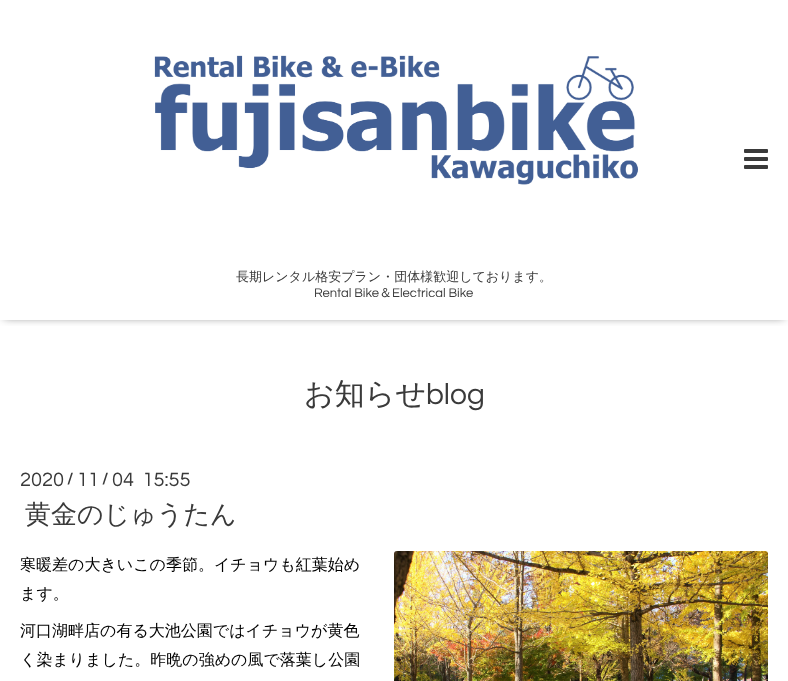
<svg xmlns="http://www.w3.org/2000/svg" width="788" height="681">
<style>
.a{font:500 13px WenQuanYi Zen Hei;fill:#3a3a3a}
.b{font:13px Questrial;fill:#3a3a3a}
.c{font:500 30px WenQuanYi Zen Hei;fill:#3a3a3a}
.d{font:30px Questrial;fill:#3a3a3a}
.e{font:20px Questrial;fill:#3a3a3a}
.f{font:bold 16px Questrial;fill:#3a3a3a}
.g{font:500 26px WenQuanYi Zen Hei;fill:#3a3a3a}
.h{font:500 16px WenQuanYi Zen Hei;fill:#000}
</style>
<defs>
<clipPath id="clip1"><path d="M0 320h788v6H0z"/></clipPath>
</defs>
<rect width="100%" height="100%" fill="#fff"/>
<g clip-path="url(#clip1)">
<path fill="#00000099" filter="blur(5px)" d="M4 5h780v312H4z"/>
</g>
<image href="1.png" x="744" y="149" width="24" height="20"/>
<image href="2.png" x="154" y="55" width="484" height="130"/>
<image href="3.png" x="394" y="551" width="374" height="130"/>
<text class="a" x="236" y="281">長期レンタル格安プラン・団体様歓迎しております。</text>
<text class="b" x="314" y="297">Rental Bike</text>
<text class="a" x="379" y="297">＆</text>
<text class="b" x="392" y="297">Electrical Bike</text>
<text class="c" x="304" y="404">お知らせ</text>
<text class="d" x="426" y="404">blog</text>
<text class="e" x="20" y="486">2020</text>
<text class="f" x="67" y="484">/</text>
<text class="e" x="77" y="486">11</text>
<text class="f" x="102" y="484">/</text>
<text class="e" xml:space="preserve" x="112" y="486">04  15:55</text>
<text class="g" x="25" y="523">黄金のじゅうたん</text>
<text class="h" x="20" y="570">寒暖差の大きいこの季節。イチョウも紅葉始め</text>
<text class="h" x="20" y="599">ます。</text>
<text class="h" x="20" y="636">河口湖畔店の有る大池公園ではイチョウが黄色</text>
<text class="h" x="20" y="665">く染まりました。昨晩の強めの風で落葉し公園</text>
</svg>
